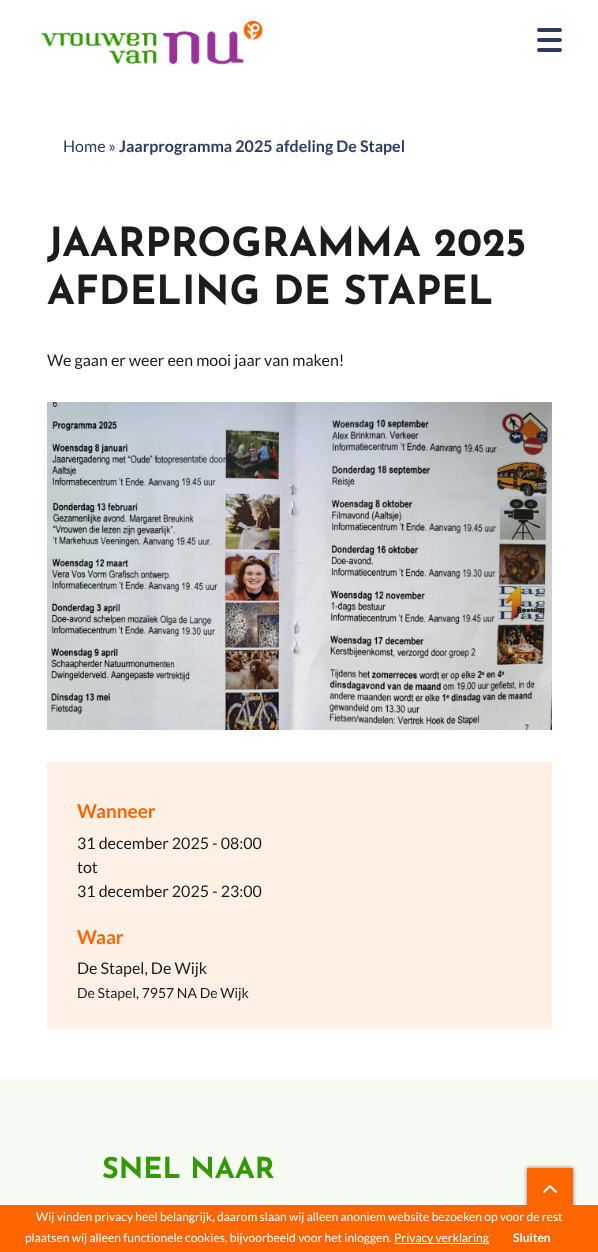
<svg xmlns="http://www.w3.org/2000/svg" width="598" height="1252">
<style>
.a{font:16px Lato;fill:#2f3b5c}
.b{font:bold 16px Lato;fill:#2f3b5c}
.c{font:bold 40px Josefin Sans;fill:#1c1c1c}
.d{font:16px Lato;fill:#1c1c1c}
.e{font:bold 19px Lato;fill:#f60}
.f{font:14px Lato;fill:#1c1c1c}
.g{font:bold 28.75px Josefin Sans;fill:#329900}
.h{font:12px Lato;fill:#fff}
.i{font:bold 12px Lato;fill:#fff}
</style>
<rect width="100%" height="100%" fill="#fff"/>
<image href="1.png" x="40" y="20" width="223" height="45"/>
<rect fill="#2f3b5c" x="537" y="28" width="25" height="4" rx="2"/>
<rect fill="#2f3b5c" x="537" y="38" width="25" height="4" rx="2"/>
<rect fill="#2f3b5c" x="537" y="48" width="25" height="4" rx="2"/>
<image href="2.png" x="47" y="402" width="505" height="328"/>
<path fill="#fff0e6" d="M47 762h505v267H47z"/>
<path fill="#f5faf3" d="M0 1079h598v126H0z"/>
<path fill="#00000080" filter="blur(2px)" d="M527 1168h46v44H527z"/>
<path fill="#f60" d="M527 1168h46v37H527z"/>
<image href="3.png" x="543" y="1185" width="14" height="8"/>
<path fill="#f60" d="M0 1205h598v47H0z"/>
<path fill="#fff" d="M394 1243h95v1H394z"/>
<text class="a" x="63" y="152">Home »</text>
<text class="b" x="119" y="152">Jaarprogramma 2025 afdeling De Stapel</text>
<text class="c" x="47" y="256">JAARPROGRAMMA 2025</text>
<text class="c" x="47" y="304">AFDELING DE STAPEL</text>
<text class="d" x="47" y="366">We gaan er weer een mooi jaar van maken!</text>
<text class="e" x="77" y="818">Wanneer</text>
<text class="d" x="77" y="849">31 december 2025 - 08:00</text>
<text class="d" x="77" y="873">tot</text>
<text class="d" x="77" y="897">31 december 2025 - 23:00</text>
<text class="e" x="77" y="944">Waar</text>
<text class="d" x="77" y="974">De Stapel, De Wijk</text>
<text class="f" x="77" y="998">De Stapel, 7957 NA De Wijk</text>
<text class="g" x="102" y="1178">SNEL NAAR</text>
<text class="h" x="36" y="1221">Wij vinden privacy heel belangrijk, daarom slaan wij alleen anoniem website bezoeken op voor de rest</text>
<text class="h" x="25" y="1242">plaatsen wij alleen functionele cookies, bijvoorbeeld voor het inloggen.</text>
<text class="h" x="394" y="1242">Privacy verklaring</text>
<text class="i" x="513" y="1242">Sluiten</text>
</svg>
